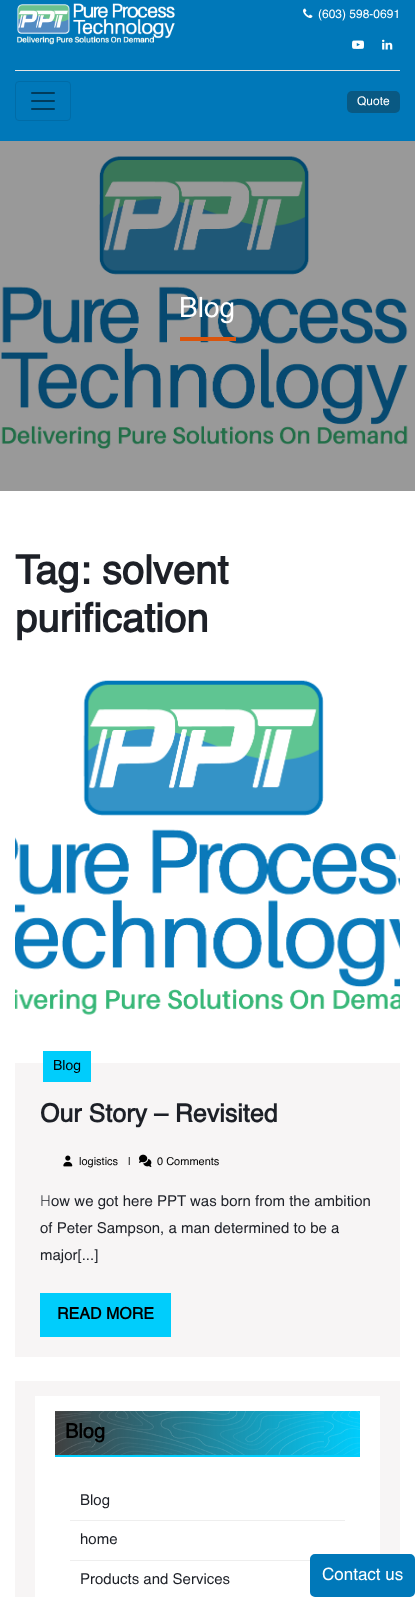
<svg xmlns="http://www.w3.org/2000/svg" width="415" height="1597">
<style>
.a{font:12px Helvetica;fill:#fff}
.b{font:28px Helvetica;fill:#fff}
.c{font:bold 40px Helvetica;fill:#1d2027}
.d{font:14px Helvetica;fill:#000}
.e{font:bold 25px Helvetica;fill:#1d2027}
.f{font:11px Helvetica;fill:#000}
.g{font:300 15px Noto Sans;fill:#1d2027}
.h{font:15px Helvetica;fill:#1d2027}
.i{font:bold 16px Helvetica;fill:#000}
.j{font:bold 20px Helvetica;fill:#000}
.k{font:17px Helvetica;fill:#fff}
</style>
<rect width="100%" height="100%" fill="#fff"/>
<path fill="#999" d="M0 141h415v350H0z"/>
<path fill="#0078b9" d="M0 0h415v141H0z"/>
<image href="1.png" x="17" y="3" width="158" height="42"/>
<image href="2.png" x="303" y="8" width="10" height="10"/>
<image href="3.png" x="352" y="40" width="12" height="9"/>
<image href="4.png" x="382" y="39" width="11" height="11"/>
<path fill="#e4e4e4" d="M15 70h385v1H15z"/>
<rect fill="none" stroke="#006ca7" x="15.5" y="81.5" width="55" height="39" rx="3.5"/>
<image href="5.png" x="31" y="92" width="24" height="18"/>
<rect fill="#095983" x="347" y="91" width="53" height="22" rx="5"/>
<image href="6.png" x="1" y="156" width="407" height="293"/>
<path fill="#da550d" d="M180 337h56v4H180z"/>
<image href="7.png" x="15" y="680" width="385" height="335"/>
<path fill="#f7f5f5" d="M15 1063h385v294H15z"/>
<path fill="#00cdfc" d="M43 1051h48v31H43z"/>
<image href="8.png" x="63" y="1155" width="10" height="12"/>
<image href="9.png" x="139" y="1154" width="13" height="13"/>
<path fill="#00cdfc" d="M40 1293h131v44H40z"/>
<path fill="#f7f5f5" d="M15 1381h385v216H15z"/>
<path fill="#fff" d="M35 1396h345v201H35z"/>
<image href="10.png" x="55" y="1411" width="305" height="44"/>
<path fill="#00cdfc" d="M55 1455h305v2H55z"/>
<path fill="#eee" d="M70 1520h275v1H70z"/>
<path fill="#eee" d="M70 1560h240v1H70z"/>
<rect fill="#0078b9" stroke="#0078b9" stroke-width="2" x="311" y="1555" width="103" height="41" rx="4"/>
<text class="a" x="318" y="18">(603) 598-0691</text>
<text class="a" x="357" y="105">Quote</text>
<text class="b" x="179" y="317">Blog</text>
<text class="c" x="15" y="584">Tag: solvent</text>
<text class="c" x="15" y="632">purification</text>
<text class="d" x="53" y="1070">Blog</text>
<text class="e" x="40" y="1122">Our Story – Revisited</text>
<text class="f" x="79" y="1165">logistics</text>
<text class="f" x="128" y="1165">|</text>
<text class="f" x="157" y="1165">0 Comments</text>
<text class="g" x="40" y="1206">H</text>
<text class="h" x="51" y="1206">ow we got here PPT was born from the ambition</text>
<text class="h" x="40" y="1233">of Peter Sampson, a man determined to be a</text>
<text class="h" x="40" y="1260">major[...]</text>
<text class="i" x="57" y="1319">READ MORE</text>
<text class="j" x="65" y="1438">Blog</text>
<text class="h" x="80" y="1505">Blog</text>
<text class="h" x="80" y="1544">home</text>
<text class="h" x="80" y="1584">Products and Services</text>
<text class="k" x="322" y="1580">Contact us</text>
</svg>
